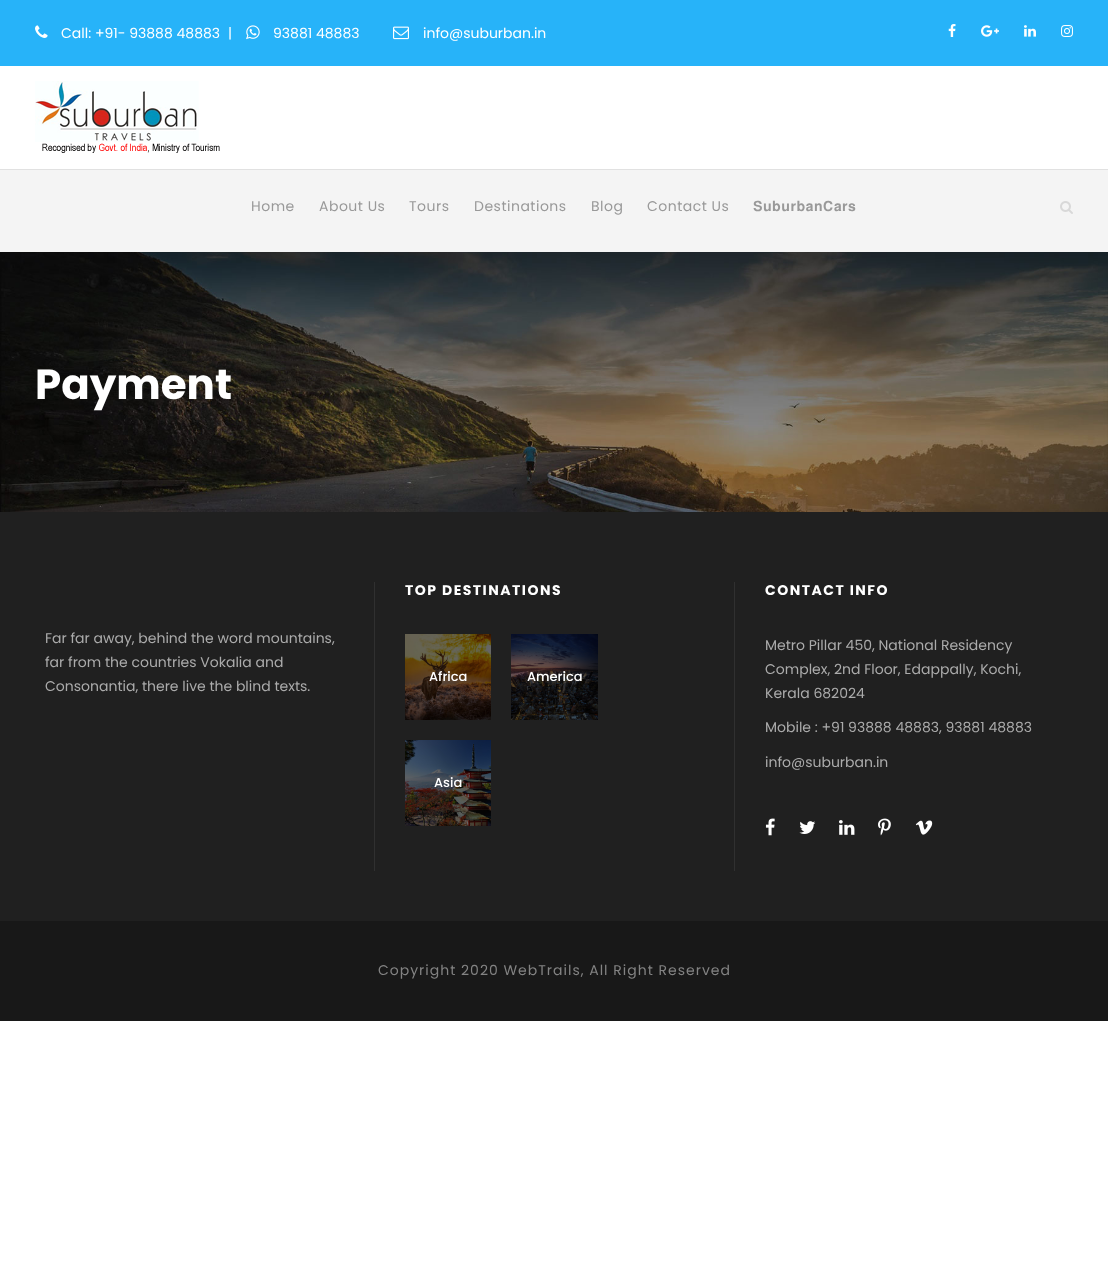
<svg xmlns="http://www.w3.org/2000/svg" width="1108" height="1262">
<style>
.a{font:14px Poppins;fill:#fff}
.b{font:14px Poppins;letter-spacing:0.5px;fill:#999}
.c{font:14px FreeSans;letter-spacing:0.5px;fill:#999}
.d{font:bold 42px Poppins;fill:#fff}
.e{font:14px Poppins;fill:#ababab}
.f{font:bold 14px Poppins;letter-spacing:1.5px;fill:#fff}
.g{font:500 13px Poppins;fill:#fff}
.h{font:14px Poppins;letter-spacing:1px;fill:#838383}
</style>
<rect width="100%" height="100%" fill="#fff"/>
<path fill="#27b3f9" d="M0 0h1108v66H0z"/>
<image href="1.png" x="35" y="25" width="13" height="13"/>
<image href="2.png" x="246" y="25" width="14" height="15"/>
<image href="3.png" x="393" y="26" width="16" height="14"/>
<image href="4.png" x="948" y="24" width="8" height="13"/>
<image href="5.png" x="981" y="25" width="18" height="12"/>
<image href="6.png" x="1024" y="25" width="12" height="12"/>
<image href="7.png" x="1061" y="25" width="12" height="12"/>
<image href="8.png" x="35" y="81" width="185" height="72"/>
<path fill="#e1e1e1" d="M0 169h1108v1H0z"/>
<path fill="#f4f4f4" d="M0 170h1108v82H0z"/>
<image href="9.png" x="1060" y="201" width="13" height="13"/>
<image href="10.png" x="0" y="252" width="1108" height="260"/>
<path fill="#202020" d="M0 512h1108v409H0z"/>
<path fill="#303030" d="M374 582h1v289H374z"/>
<image href="11.png" x="405" y="634" width="86" height="86"/>
<image href="12.png" x="511" y="634" width="87" height="86"/>
<image href="13.png" x="405" y="740" width="86" height="86"/>
<path fill="#303030" d="M734 582h1v289H734z"/>
<image href="14.png" x="765" y="818" width="10" height="18"/>
<image href="15.png" x="799" y="821" width="17" height="13"/>
<image href="16.png" x="839" y="820" width="16" height="15"/>
<image href="17.png" x="878" y="818" width="13" height="18"/>
<image href="18.png" x="915" y="820" width="18" height="15"/>
<path fill="#181818" d="M0 921h1108v100H0z"/>
<text class="a" x="61" y="38">Call: +91- 93888 48883</text>
<text class="a" x="228" y="38">|</text>
<text class="a" x="273" y="38">93881 48883</text>
<text class="a" x="423" y="38">info@suburban.in</text>
<text class="b" x="251" y="211">Home</text>
<text class="b" x="319" y="211">About Us</text>
<text class="b" x="409" y="211">Tours</text>
<text class="b" x="474" y="211">Destinations</text>
<text class="b" x="591" y="211">Blog</text>
<text class="b" x="647" y="211">Contact Us</text>
<text class="c" x="753" y="211">𝐒𝐮𝐛𝐮𝐫𝐛𝐚𝐧𝐂𝐚𝐫𝐬</text>
<text class="d" x="35" y="399">Payment</text>
<text class="e" x="45" y="643">Far far away, behind the word mountains,</text>
<text class="e" x="45" y="667">far from the countries Vokalia and</text>
<text class="e" x="45" y="691">Consonantia, there live the blind texts.</text>
<text class="f" x="405" y="595">TOP DESTINATIONS</text>
<text class="g" x="429" y="681">Africa</text>
<text class="g" x="527" y="681">America</text>
<text class="g" x="434" y="787">Asia</text>
<text class="f" x="765" y="595">CONTACT INFO</text>
<text class="e" x="765" y="650">Metro Pillar 450, National Residency</text>
<text class="e" x="765" y="674">Complex, 2nd Floor, Edappally, Kochi,</text>
<text class="e" x="765" y="698">Kerala 682024</text>
<text class="e" x="765" y="732">Mobile : +91 93888 48883, 93881 48883</text>
<text class="e" x="765" y="767">info@suburban.in</text>
<text class="h" x="378" y="975">Copyright 2020 WebTrails, All Right Reserved</text>
</svg>
